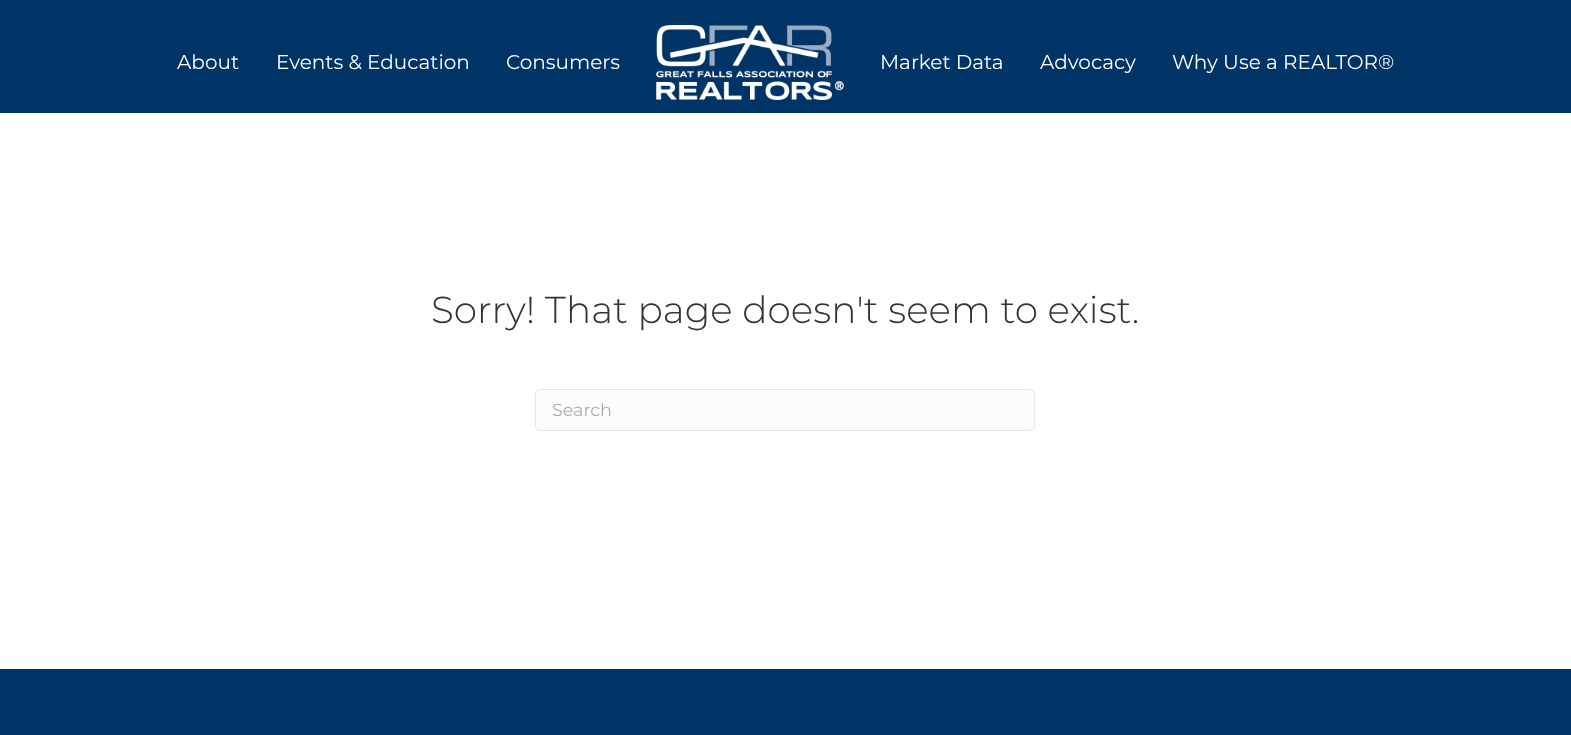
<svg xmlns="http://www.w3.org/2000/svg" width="1571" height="735">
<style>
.a{font:20px Montserrat;fill:#fff}
.b{font:300 37.5px Montserrat;fill:#333}
.c{font:17.5px Montserrat;fill:#acacac}
</style>
<rect width="100%" height="100%" fill="#fff"/>
<path fill="#003466" d="M0 0h1571v113H0z"/>
<image href="1.png" x="656" y="25" width="188" height="75"/>
<rect fill="#fcfcfc" stroke="#e6e6e6" x="535.5" y="389.5" width="499" height="41" rx="4.5"/>
<path fill="#003466" d="M0 669h1571v66H0z"/>
<text class="a" x="177" y="69">About</text>
<text class="a" x="276" y="69">Events &amp; Education</text>
<text class="a" x="506" y="69">Consumers</text>
<text class="a" x="880" y="69">Market Data</text>
<text class="a" x="1040" y="69">Advocacy</text>
<text class="a" x="1172" y="69">Why Use a REALTOR®</text>
<text class="b" x="431" y="323">Sorry! That page doesn't seem to exist.</text>
<text class="c" x="552" y="416">Search</text>
</svg>
